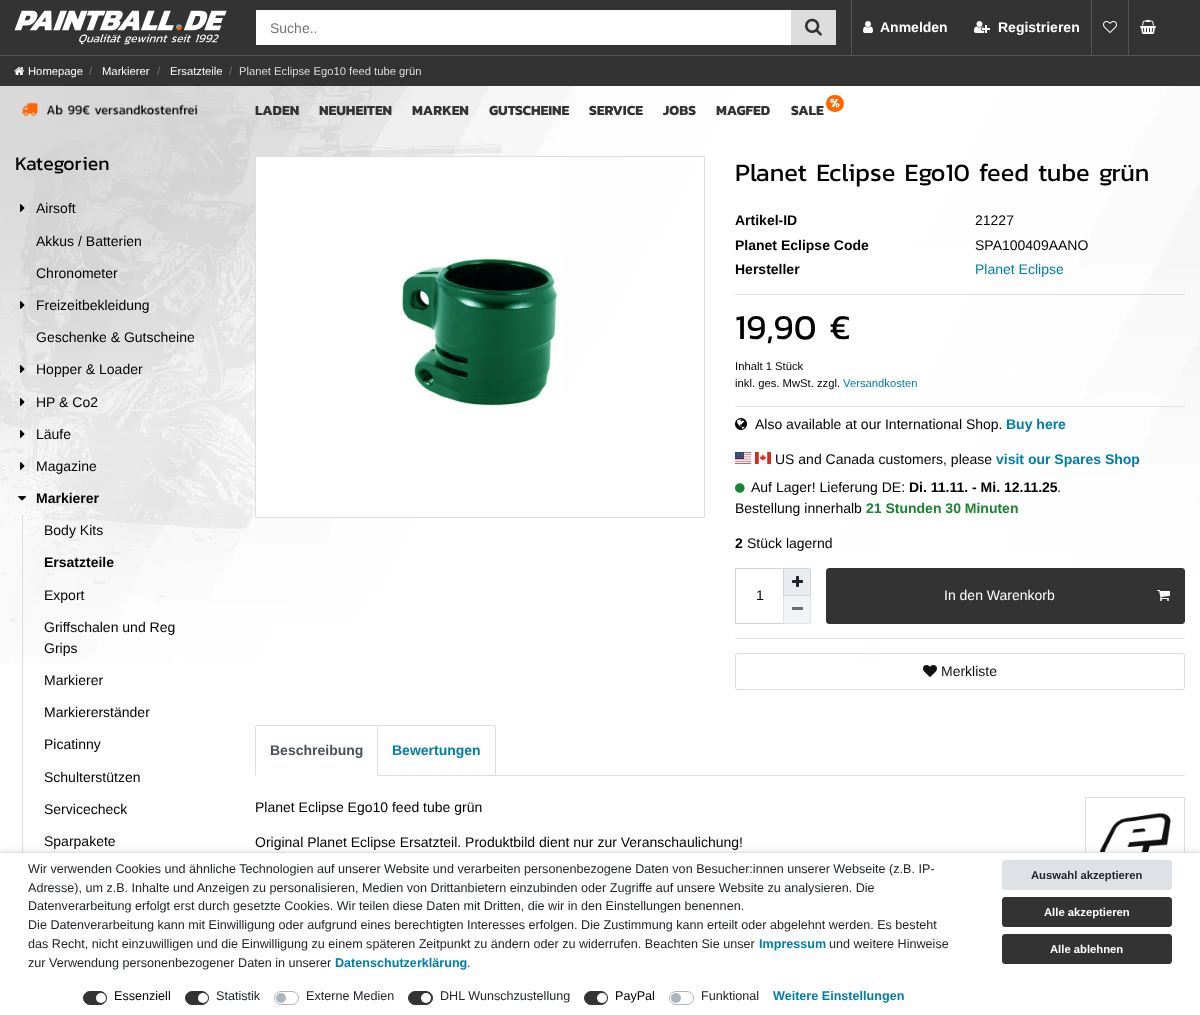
<svg xmlns="http://www.w3.org/2000/svg" width="1200" height="1015">
<style>
.a{font:14px Liberation Sans;fill:#757575}
.b{font:bold 14px Liberation Sans;fill:#fff}
.c{font:11.25px Liberation Sans;fill:#fff}
.d{font:11.25px Liberation Sans;fill:#6c757d}
.e{font:11.25px Liberation Sans;fill:#ddd}
.f{font:bold 14px Kanit;fill:#333}
.g{font:bold 12.6px Kanit;fill:#fff}
.h{font:19.5px Kanit;fill:#000}
.i{font:14px Liberation Sans;fill:#000}
.j{font:bold 14px Liberation Sans;fill:#000}
.k{font:25.25px Kanit;fill:#000}
.l{font:14px Liberation Sans;fill:#007ea8}
.m{font:35px Kanit;fill:#000}
.n{font:11.25px Liberation Sans;fill:#000}
.o{font:11.25px Liberation Sans;fill:#007ea8}
.p{font:bold 14px Liberation Sans;fill:#007ea8}
.q{font:bold 14px Liberation Sans;fill:#198632}
.r{font:14px Liberation Sans;fill:#fff}
.s{font:14px Liberation Sans;fill:#111}
.t{font:bold 14px Liberation Sans;fill:#495057}
.u{font:12.6px Liberation Sans;fill:#212529}
.v{font:bold 12.6px Liberation Sans;fill:#007ea8}
.w{font:12.6px Liberation Sans;fill:#000}
.x{font:bold 11.25px Liberation Sans;fill:#212529}
.y{font:bold 11.25px Liberation Sans;fill:#fff}
</style>
<rect width="100%" height="100%" fill="#fff"/>
<image href="1.png" x="0" y="86" width="1200" height="578"/>
<path fill="#333" d="M0 0h1200v55H0z"/>
<path fill="#555" d="M0 55h1200v1H0z"/>
<image href="2.png" x="14" y="10" width="213" height="35"/>
<path fill="#fff" d="M256 10h535v35H256z"/>
<path fill="#ddd" d="M791 10h45v35H791z"/>
<image href="3.png" x="805" y="18" width="17" height="18"/>
<path fill="#555" d="M851 0h1v55H851z"/>
<image href="4.png" x="863" y="21" width="10" height="12"/>
<image href="5.png" x="974" y="21" width="16" height="12"/>
<path fill="#555" d="M1091 0h1v55H1091z"/>
<image href="6.png" x="1103" y="21" width="14" height="12"/>
<path fill="#555" d="M1128 0h1v55H1128z"/>
<image href="7.png" x="1140" y="20" width="16" height="14"/>
<path fill="#333" d="M0 56h1200v30H0z"/>
<image href="8.png" x="14" y="67" width="11" height="8"/>
<image href="9.png" x="21" y="102" width="177" height="15"/>
<rect fill="#f60" x="826" y="95" width="18" height="17" rx="8.5"/>
<image href="10.png" x="20" y="204" width="5" height="8"/>
<image href="11.png" x="20" y="301" width="5" height="8"/>
<image href="12.png" x="20" y="365" width="5" height="8"/>
<image href="13.png" x="20" y="398" width="5" height="8"/>
<image href="14.png" x="20" y="430" width="5" height="8"/>
<image href="15.png" x="20" y="462" width="5" height="8"/>
<image href="16.png" x="18" y="496" width="8" height="5"/>
<path fill="#ddd" d="M22 515h1v343H22z"/>
<path fill="#fff" d="M256 157h307v360H256z"/>
<path fill="none" stroke="#ddd" d="M255.5 156.5h449v361H255.5z"/>
<image href="17.png" x="401" y="257" width="159" height="150"/>
<path fill="#ddd" d="M735 294h450v1H735z"/>
<path fill="#dee2e6" d="M735 406h450v1H735z"/>
<image href="18.png" x="735" y="418" width="12" height="12"/>
<image href="19.png" x="735" y="452" width="16" height="12"/>
<image href="20.png" x="755" y="452" width="16" height="12"/>
<image href="21.png" x="735" y="483" width="10" height="10"/>
<path fill="#ced4da" d="M735 568h48v1H735z"/>
<path fill="#ced4da" d="M735 623h48v1H735z"/>
<path fill="#ced4da" d="M735 568h1v56H735z"/>
<path fill="#e9ecef" stroke="#ced4da" d="M783.5 568.5h26c.5 0 1 .5 1 1v26h-27z"/>
<image href="22.png" x="792" y="576" width="11" height="11"/>
<path fill="#f1f3f5" d="M783 596h28v26.5c0 1-.5 1.5-1.5 1.5h-26.5z"/>
<path fill="#dfe3e7" d="M810 596h1v27H810z"/>
<path fill="#dfe3e7" d="M783 623h27v1H783z"/>
<path fill="#dfe3e7" d="M783 596h1v28H783z"/>
<path fill="#6a6d70" d="M792 607h11v3H792z"/>
<rect fill="#333" stroke="#333" x="826.5" y="568.5" width="358" height="55" rx="2.5"/>
<image href="23.png" x="1157" y="590" width="13" height="11"/>
<path fill="#dee2e6" d="M735 638h450v1H735z"/>
<rect fill="none" stroke="#ddd" x="735.5" y="653.5" width="449" height="36" rx="2.5"/>
<image href="24.png" x="923" y="665" width="14" height="12"/>
<path fill="#ddd" d="M496 775h689v1H496z"/>
<path fill="#ddd" d="M256 725v1h121h1l-1-1z"/>
<path fill="#ddd" d="M256 726h-1v50l1-1z"/>
<path fill="none" stroke="#ddd" d="M378.5 725.5h116c.5 0 1 .5 1 1v49h-118v-49c0-.5 .5-1 1-1z"/>
<path fill="none" stroke="#ddd" d="M1085.5 797.5h99v99H1085.5z"/>
<image href="25.png" x="1099" y="812" width="72" height="40"/>
<path fill="#0000001a" filter="blur(3px)" d="M0 851h1200v163H0z"/>
<path fill="#fff" d="M0 853h1200v162H0z"/>
<path fill="#dee2e6" d="M0 852h1200v1H0z"/>
<rect fill="#333" stroke="#333" x="83.5" y="991.5" width="23" height="13" rx="6.5"/>
<circle fill="#fff" cx="101" cy="998" r="5"/>
<rect fill="#333" stroke="#333" x="185.5" y="991.5" width="23" height="13" rx="6.5"/>
<circle fill="#fff" cx="203" cy="998" r="5"/>
<rect fill="none" stroke="#adb5bd" x="274.5" y="991.5" width="24" height="13" rx="6.5"/>
<circle fill="#adb5bd" cx="281" cy="998" r="5"/>
<rect fill="#333" stroke="#333" x="408.5" y="991.5" width="24" height="13" rx="6.5"/>
<circle fill="#fff" cx="426" cy="998" r="5"/>
<rect fill="#333" stroke="#333" x="584.5" y="991.5" width="23" height="13" rx="6.5"/>
<circle fill="#fff" cx="602" cy="998" r="5"/>
<rect fill="none" stroke="#adb5bd" x="669.5" y="991.5" width="24" height="13" rx="6.5"/>
<circle fill="#adb5bd" cx="676" cy="998" r="5"/>
<rect fill="#dee2e6" stroke="#dee2e6" x="1002.5" y="860.5" width="169" height="29" rx="2.5"/>
<rect fill="#333" stroke="#333" x="1002.5" y="897.5" width="169" height="29" rx="2.5"/>
<rect fill="#333" stroke="#333" x="1002.5" y="934.5" width="169" height="29" rx="2.5"/>
<text class="a" x="270" y="33">Suche..</text>
<text class="b" x="880" y="32">Anmelden</text>
<text class="b" x="998" y="32">Registrieren</text>
<text class="c" x="28" y="75">Homepage</text>
<text class="d" x="89" y="75">/</text>
<text class="c" x="102" y="75">Markierer</text>
<text class="d" x="157" y="75">/</text>
<text class="c" x="170" y="75">Ersatzteile</text>
<text class="d" x="229" y="75">/</text>
<text class="e" x="239" y="75">Planet Eclipse Ego10 feed tube grün</text>
<text class="f" x="255" y="115">LADEN</text>
<text class="f" x="319" y="115">NEUHEITEN</text>
<text class="f" x="412" y="115">MARKEN</text>
<text class="f" x="489" y="115">GUTSCHEINE</text>
<text class="f" x="589" y="115">SERVICE</text>
<text class="f" x="663" y="115">JOBS</text>
<text class="f" x="716" y="115">MAGFED</text>
<text class="g" x="830" y="107">%</text>
<text class="f" x="791" y="115">SALE</text>
<text class="h" x="15" y="170">Kategorien</text>
<text class="i" x="36" y="213">Airsoft</text>
<text class="i" x="36" y="246">Akkus / Batterien</text>
<text class="i" x="36" y="278">Chronometer</text>
<text class="i" x="36" y="310">Freizeitbekleidung</text>
<text class="i" x="36" y="342">Geschenke &amp; Gutscheine</text>
<text class="i" x="36" y="374">Hopper &amp; Loader</text>
<text class="i" x="36" y="407">HP &amp; Co2</text>
<text class="i" x="36" y="439">Läufe</text>
<text class="i" x="36" y="471">Magazine</text>
<text class="j" x="36" y="503">Markierer</text>
<text class="i" x="44" y="535">Body Kits</text>
<text class="j" x="44" y="567">Ersatzteile</text>
<text class="i" x="44" y="600">Export</text>
<text class="i" x="44" y="632">Griffschalen und Reg</text>
<text class="i" x="44" y="653">Grips</text>
<text class="i" x="44" y="685">Markierer</text>
<text class="i" x="44" y="717">Markiererständer</text>
<text class="i" x="44" y="749">Picatinny</text>
<text class="i" x="44" y="782">Schulterstützen</text>
<text class="i" x="44" y="814">Servicecheck</text>
<text class="i" x="44" y="846">Sparpakete</text>
<text class="k" x="735" y="181">Planet Eclipse Ego10 feed tube grün</text>
<text class="j" x="735" y="225">Artikel-ID</text>
<text class="i" x="975" y="225">21227</text>
<text class="j" x="735" y="250">Planet Eclipse Code</text>
<text class="i" x="975" y="250">SPA100409AANO</text>
<text class="j" x="735" y="274">Hersteller</text>
<text class="l" x="975" y="274">Planet Eclipse</text>
<text class="m" x="735" y="339">19,90 €</text>
<text class="n" x="735" y="370">Inhalt 1 Stück</text>
<text class="n" x="735" y="387">inkl. ges. MwSt. zzgl.</text>
<text class="o" x="843" y="387">Versandkosten</text>
<text class="i" x="755" y="429">Also available at our International Shop.</text>
<text class="p" x="1006" y="429">Buy here</text>
<text class="i" x="775" y="464">US and Canada customers, please</text>
<text class="p" x="996" y="464">visit our Spares Shop</text>
<text class="i" x="751" y="492">Auf Lager! Lieferung DE:</text>
<text class="j" x="909" y="492">Di. 11.11. - Mi. 12.11.25</text>
<text class="i" x="1057" y="492">.</text>
<text class="i" x="735" y="513">Bestellung innerhalb</text>
<text class="q" x="866" y="513">21 Stunden 30 Minuten</text>
<text class="j" x="735" y="548">2</text>
<text class="i" x="747" y="548">Stück lagernd</text>
<text class="i" x="756" y="600">1</text>
<text class="r" x="944" y="600">In den Warenkorb</text>
<text class="s" x="941" y="676">Merkliste</text>
<text class="t" x="270" y="755">Beschreibung</text>
<text class="p" x="392" y="755">Bewertungen</text>
<text class="i" x="255" y="812">Planet Eclipse Ego10 feed tube grün</text>
<text class="i" x="255" y="847">Original Planet Eclipse Ersatzteil. Produktbild dient nur zur Veranschaulichung!</text>
<text class="u" x="28" y="873">Wir verwenden Cookies und ähnliche Technologien auf unserer Website und verarbeiten personenbezogene Daten von Besucher:innen unserer Webseite (z.B. IP-</text>
<text class="u" x="28" y="892">Adresse), um z.B. Inhalte und Anzeigen zu personalisieren, Medien von Drittanbietern einzubinden oder Zugriffe auf unsere Website zu analysieren. Die</text>
<text class="u" x="28" y="910">Datenverarbeitung erfolgt erst durch gesetzte Cookies. Wir teilen diese Daten mit Dritten, die wir in den Einstellungen benennen.</text>
<text class="u" x="28" y="929">Die Datenverarbeitung kann mit Einwilligung oder aufgrund eines berechtigten Interesses erfolgen. Die Zustimmung kann erteilt oder abgelehnt werden. Es besteht</text>
<text class="u" x="28" y="948">das Recht, nicht einzuwilligen und die Einwilligung zu einem späteren Zeitpunkt zu ändern oder zu widerrufen. Beachten Sie unser</text>
<text class="v" x="759" y="948">Impressum</text>
<text class="u" x="829" y="948">und weitere Hinweise</text>
<text class="u" x="28" y="967">zur Verwendung personenbezogener Daten in unserer</text>
<text class="v" x="335" y="967">Datenschutzerklärung</text>
<text class="u" x="467" y="967">.</text>
<text class="w" x="114" y="1000">Essenziell</text>
<text class="u" x="216" y="1000">Statistik</text>
<text class="u" x="306" y="1000">Externe Medien</text>
<text class="u" x="440" y="1000">DHL Wunschzustellung</text>
<text class="w" x="615" y="1000">PayPal</text>
<text class="u" x="701" y="1000">Funktional</text>
<text class="v" x="773" y="1000">Weitere Einstellungen</text>
<text class="x" x="1031" y="879">Auswahl akzeptieren</text>
<text class="y" x="1044" y="916">Alle akzeptieren</text>
<text class="y" x="1050" y="953">Alle ablehnen</text>
</svg>
